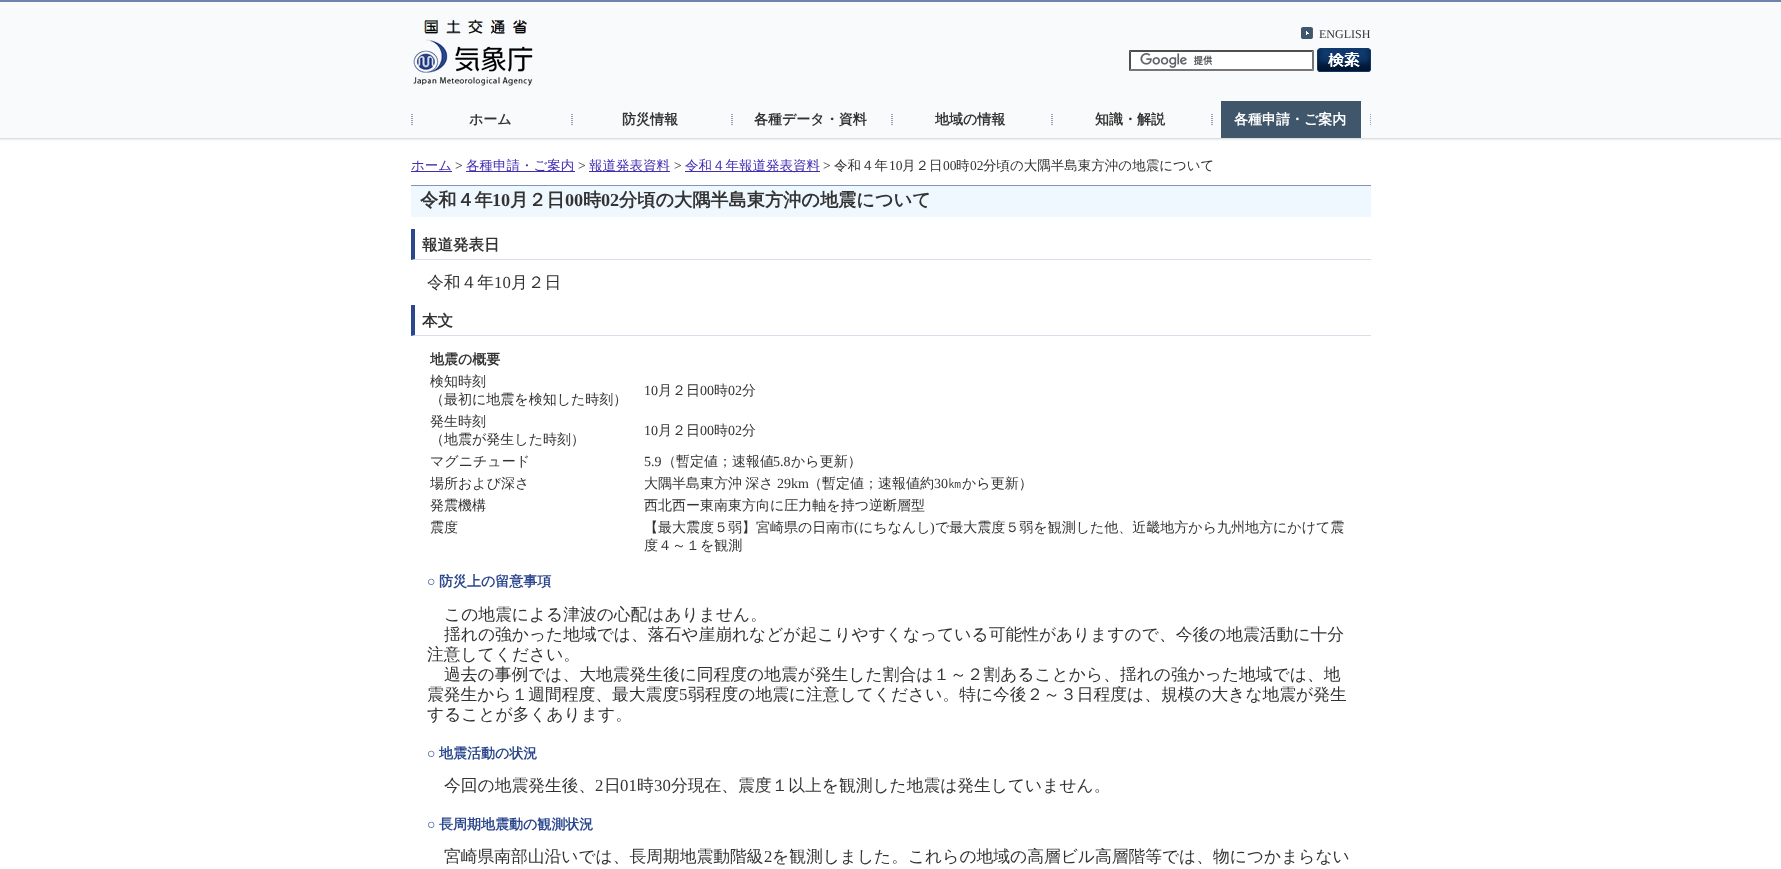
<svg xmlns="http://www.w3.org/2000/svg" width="1781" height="869">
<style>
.a{font:12px Liberation Serif;fill:#333}
.b{font:bold 14px WenQuanYi Zen Hei;fill:#333}
.c{font:bold 14px WenQuanYi Zen Hei;fill:#fff}
.d{font:500 13.5px WenQuanYi Zen Hei;fill:#432db2}
.e{font:13.5px Liberation Serif;fill:#333}
.f{font:500 13.5px WenQuanYi Zen Hei;fill:#333}
.g{font:bold 18.2px WenQuanYi Zen Hei;fill:#333}
.h{font:bold 18.2px Liberation Serif;fill:#333}
.i{font:bold 15.5px WenQuanYi Zen Hei;fill:#333}
.j{font:500 16.75px WenQuanYi Zen Hei;fill:#333}
.k{font:16.75px Liberation Serif;fill:#333}
.l{font:500 14px WenQuanYi Zen Hei;fill:#333}
.m{font:14px Liberation Serif;fill:#333}
.n{font:bold 14px Liberation Serif;fill:#2b478e}
.o{font:bold 14px WenQuanYi Zen Hei;fill:#2b478e}
</style>
<rect width="100%" height="100%" fill="#f9fafb"/>
<image href="1.png" x="0" y="138" width="1781" height="2"/>
<path fill="#7182af" d="M0 0h1781v2H0z"/>
<image href="2.png" x="413" y="19" width="120" height="67"/>
<image href="3.png" x="1301" y="27" width="12" height="12"/>
<path fill="#fff" d="M1129 50h185v21H1129z"/>
<image href="4.png" x="1140" y="53" width="73" height="15"/>
<path fill="#4f4f4f" d="M1129 50h185l-2 2h-181z"/>
<path fill="#767676" d="M1314 50v21l-2-2v-17z"/>
<path fill="#767676" d="M1314 71h-185l2-2h181z"/>
<path fill="#4f4f4f" d="M1129 71v-21l2 2v17z"/>
<image href="5.png" x="1317" y="48" width="54" height="24"/>
<image href="6.png" x="1370" y="114" width="1" height="11"/>
<image href="7.png" x="411" y="114" width="2" height="11"/>
<image href="7.png" x="571" y="114" width="2" height="11"/>
<image href="7.png" x="731" y="114" width="2" height="11"/>
<image href="7.png" x="891" y="114" width="2" height="11"/>
<image href="7.png" x="1051" y="114" width="2" height="11"/>
<image href="7.png" x="1211" y="114" width="2" height="11"/>
<path fill="#40566a" d="M1221 101h140v37H1221z"/>
<path fill="#fff" d="M0 141h1781v728H0z"/>
<path fill="#432db2" d="M411 171h41v1H411z"/>
<path fill="#432db2" d="M466 171h109v1H466z"/>
<path fill="#432db2" d="M589 171h81v1H589z"/>
<path fill="#432db2" d="M685 171h135v1H685z"/>
<path fill="#f0f8ff" d="M411 186h960v31H411z"/>
<path fill="#7f95bd" d="M411 185h960v1H411z"/>
<path fill="#dadfec" d="M1371 260h-960l4-1h956z"/>
<path fill="#2b478e" d="M411 260v-31h4v30z"/>
<path fill="#dadfec" d="M1371 336h-960l4-1h956z"/>
<path fill="#2b478e" d="M411 336v-31h4v30z"/>
<text class="a" x="1319" y="38">ENGLISH</text>
<text class="b" x="469" y="124">ホーム</text>
<text class="b" x="622" y="124">防災情報</text>
<text class="b" x="754" y="124">各種データ・資料</text>
<text class="b" x="935" y="124">地域の情報</text>
<text class="b" x="1095" y="124">知識・解説</text>
<text class="c" x="1234" y="124">各種申請・ご案内</text>
<text class="d" x="411" y="170">ホーム</text>
<text class="e" x="455" y="170">&gt;</text>
<text class="d" x="466" y="170">各種申請・ご案内</text>
<text class="e" x="578" y="170">&gt;</text>
<text class="d" x="589" y="170">報道発表資料</text>
<text class="e" x="674" y="170">&gt;</text>
<text class="d" x="685" y="170">令和４年報道発表資料</text>
<text class="e" x="823" y="170">&gt;</text>
<text class="f" x="834" y="170">令和４年</text>
<text class="e" x="889" y="170">10</text>
<text class="f" x="902" y="170">月２日</text>
<text class="e" x="943" y="170">00</text>
<text class="f" x="956" y="170">時</text>
<text class="e" x="970" y="170">02</text>
<text class="f" x="983" y="170">分頃の大隅半島東方沖の地震について</text>
<text class="g" x="420" y="206">令和４年</text>
<text class="h" x="492" y="206">10</text>
<text class="g" x="510" y="206">月２日</text>
<text class="h" x="565" y="206">00</text>
<text class="g" x="583" y="206">時</text>
<text class="h" x="601" y="206">02</text>
<text class="g" x="619" y="206">分頃の大隅半島東方沖の地震について</text>
<text class="i" x="422" y="250">報道発表日</text>
<text class="j" x="427" y="288">令和４年</text>
<text class="k" x="494" y="288">10</text>
<text class="j" x="511" y="288">月２日</text>
<text class="i" x="422" y="326">本文</text>
<text class="b" x="430" y="364">地震の概要</text>
<text class="l" x="430" y="386">検知時刻</text>
<text class="l" x="430" y="404">（最初に地震を検知した時刻）</text>
<text class="m" x="644" y="395">10</text>
<text class="l" x="658" y="395">月２日</text>
<text class="m" x="700" y="395">00</text>
<text class="l" x="714" y="395">時</text>
<text class="m" x="728" y="395">02</text>
<text class="l" x="742" y="395">分</text>
<text class="l" x="430" y="426">発生時刻</text>
<text class="l" x="430" y="444">（地震が発生した時刻）</text>
<text class="m" x="644" y="435">10</text>
<text class="l" x="658" y="435">月２日</text>
<text class="m" x="700" y="435">00</text>
<text class="l" x="714" y="435">時</text>
<text class="m" x="728" y="435">02</text>
<text class="l" x="742" y="435">分</text>
<text class="l" x="430" y="466">マグニチュード</text>
<text class="m" x="644" y="466">5.9</text>
<text class="l" x="662" y="466">（暫定値；速報値</text>
<text class="m" x="773" y="466">5.8</text>
<text class="l" x="791" y="466">から更新）</text>
<text class="l" x="430" y="488">場所および深さ</text>
<text class="l" x="644" y="488" word-spacing="-1">大隅半島東方沖 深さ</text>
<text class="m" x="777" y="488">29km</text>
<text class="l" x="808" y="488">（暫定値；速報値約</text>
<text class="m" x="934" y="488">30</text>
<text class="l" x="948" y="488">㎞から更新）</text>
<text class="l" x="430" y="510">発震機構</text>
<text class="l" x="644" y="510">西北西ー東南東方向に圧力軸を持つ逆断層型</text>
<text class="l" x="430" y="532">震度</text>
<text class="l" x="644" y="532">【最大震度５弱】宮崎県の日南市</text>
<text class="m" x="854" y="532">(</text>
<text class="l" x="859" y="532">にちなんし</text>
<text class="m" x="930" y="532">)</text>
<text class="l" x="935" y="532">で最大震度５弱を観測した他、近畿地方から九州地方にかけて震</text>
<text class="l" x="644" y="550">度４～１を観測</text>
<text class="n" x="427" y="586">○</text>
<text class="o" x="439" y="586">防災上の留意事項</text>
<text class="j" x="444" y="620">この地震による津波の心配はありません。</text>
<text class="j" x="444" y="640">揺れの強かった地域では、落石や崖崩れなどが起こりやすくなっている可能性がありますので、今後の地震活動に十分</text>
<text class="j" x="427" y="660">注意してください。</text>
<text class="j" x="444" y="680">過去の事例では、大地震発生後に同程度の地震が発生した割合は１～２割あることから、揺れの強かった地域では、地</text>
<text class="j" x="427" y="700">震発生から１週間程度、最大震度</text>
<text class="k" x="679" y="700">5</text>
<text class="j" x="688" y="700">弱程度の地震に注意してください。特に今後２～３日程度は、規模の大きな地震が発生</text>
<text class="j" x="427" y="720">することが多くあります。</text>
<text class="n" x="427" y="758">○</text>
<text class="o" x="439" y="758">地震活動の状況</text>
<text class="j" x="444" y="791">今回の地震発生後、</text>
<text class="k" x="595" y="791">2</text>
<text class="j" x="604" y="791">日</text>
<text class="k" x="620" y="791">01</text>
<text class="j" x="637" y="791">時</text>
<text class="k" x="654" y="791">30</text>
<text class="j" x="671" y="791">分現在、震度１以上を観測した地震は発生していません。</text>
<text class="n" x="427" y="829">○</text>
<text class="o" x="439" y="829">長周期地震動の観測状況</text>
<text class="j" x="444" y="862">宮崎県南部山沿いでは、長周期地震動階級</text>
<text class="k" x="764" y="862">2</text>
<text class="j" x="772" y="862">を観測しました。これらの地域の高層ビル高層階等では、物につかまらない</text>
</svg>
